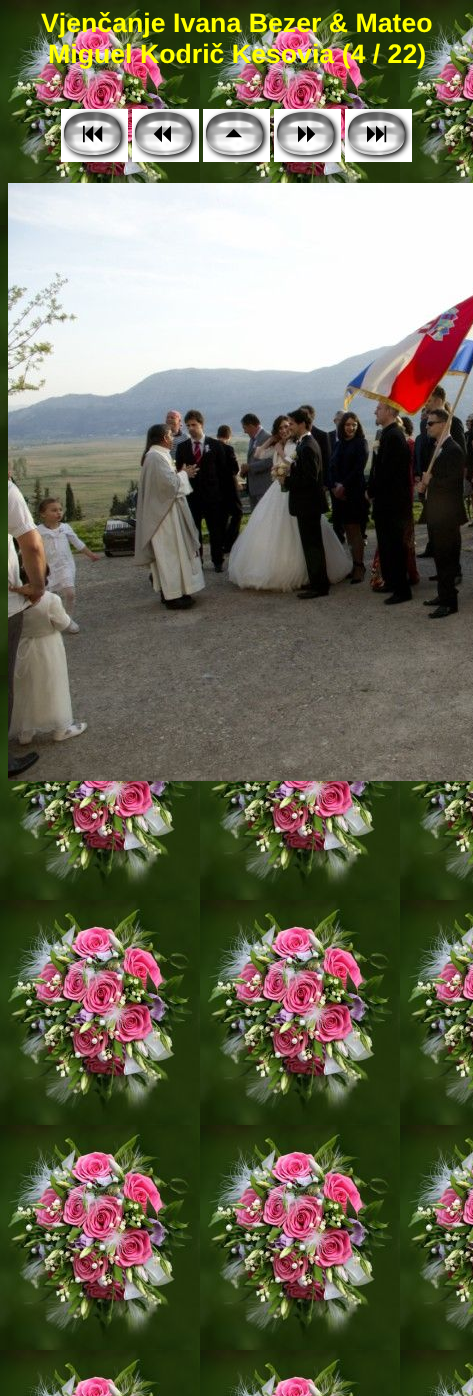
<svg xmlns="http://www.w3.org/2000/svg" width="473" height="1396">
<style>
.a{font:bold 26.7px Liberation Sans;fill:#ff0}
</style>
<rect width="100%" height="100%" fill="#fff"/>
<image href="1.png" x="0" y="0" width="473" height="1396"/>
<image href="2.png" x="61" y="109" width="67" height="53"/>
<image href="3.png" x="132" y="109" width="67" height="53"/>
<image href="4.png" x="203" y="109" width="67" height="53"/>
<image href="5.png" x="274" y="109" width="67" height="53"/>
<image href="6.png" x="345" y="109" width="67" height="53"/>
<image href="7.png" x="8" y="183" width="465" height="598"/>
<text class="a" x="41" y="32">Vjenčanje Ivana Bezer &amp; Mateo</text>
<text class="a" x="48" y="63">Miguel Kodrič Kesovia (4 / 22)</text>
</svg>
